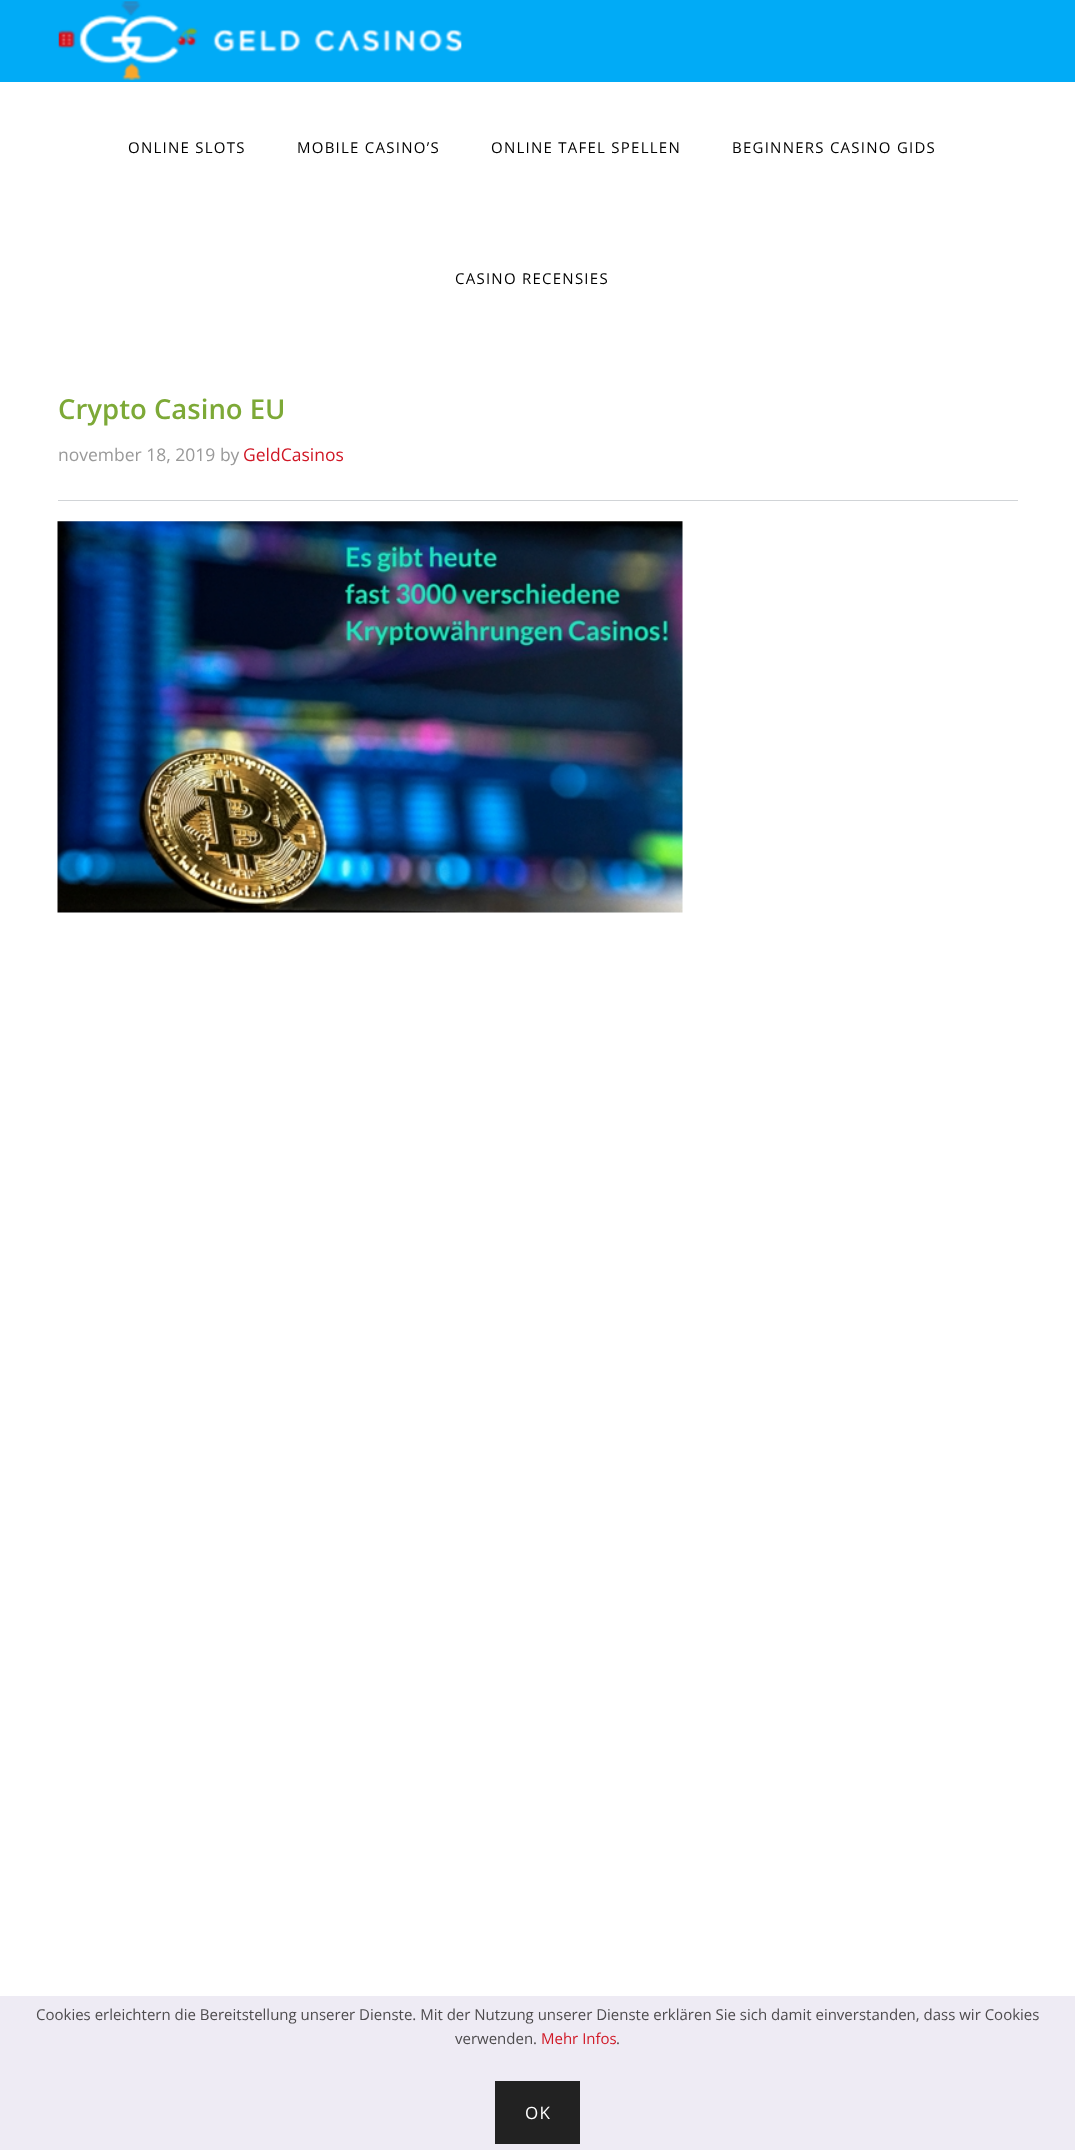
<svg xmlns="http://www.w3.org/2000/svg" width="1075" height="2150">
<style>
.a{font:15px Open Sans;letter-spacing:1.25px;fill:#000}
.b{font:600 27.5px Open Sans;fill:#7da937}
.c{font:17.5px Open Sans;fill:#999}
.d{font:17.5px Open Sans;fill:#d01725}
.e{font:15px Open Sans;fill:#4d4b4d}
.f{font:15px Open Sans;fill:#d01725}
.g{font:17px Open Sans;letter-spacing:1.25px;fill:#fff}
</style>
<rect width="100%" height="100%" fill="#fff"/>
<path fill="#01abf6" d="M0 0h1075v82H0z"/>
<image href="1.png" x="58" y="1" width="404" height="80"/>
<path fill="#d1d4d7" d="M58 500h960v1H58z"/>
<image href="2.png" x="57" y="521" width="626" height="392"/>
<path fill="#eeebf4" d="M0 1996h1075v154H0z"/>
<path fill="#222" d="M495 2081h85v63H495z"/>
<text class="a" x="128" y="153">ONLINE SLOTS</text>
<text class="a" x="297" y="153">MOBILE CASINO’S</text>
<text class="a" x="491" y="153">ONLINE TAFEL SPELLEN</text>
<text class="a" x="732" y="153">BEGINNERS CASINO GIDS</text>
<text class="a" x="455" y="284">CASINO RECENSIES</text>
<text class="b" x="58" y="419">Crypto Casino EU</text>
<text class="c" x="58" y="461">november 18, 2019 by</text>
<text class="d" x="243" y="461">GeldCasinos</text>
<text class="e" x="36" y="2020">Cookies erleichtern die Bereitstellung unserer Dienste. Mit der Nutzung unserer Dienste erklären Sie sich damit einverstanden, dass wir Cookies</text>
<text class="e" x="455" y="2044">verwenden.</text>
<text class="f" x="541" y="2044">Mehr Infos</text>
<text class="e" x="616" y="2044">.</text>
<text class="g" x="525" y="2119">OK</text>
</svg>
